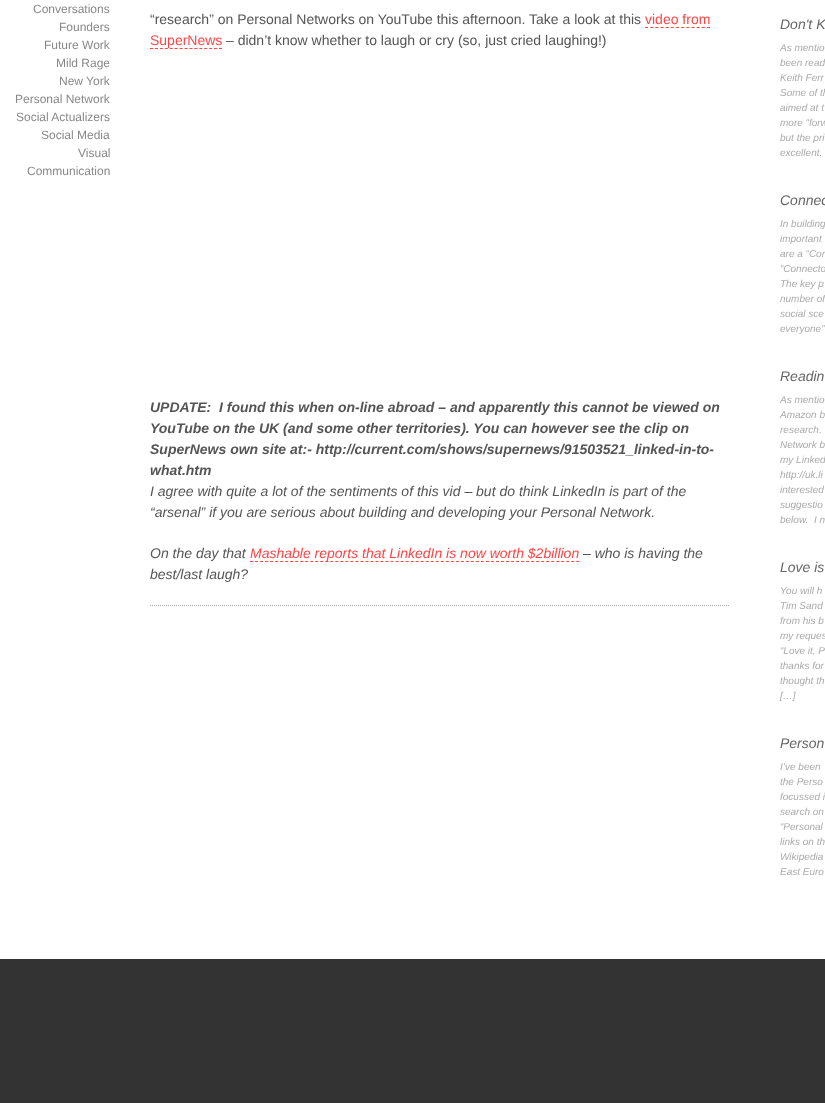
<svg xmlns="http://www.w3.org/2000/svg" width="825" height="1103">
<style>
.a{font:12px Liberation Sans;fill:#888}
.b{font:14px Liberation Sans;fill:#555}
.c{font:14px Liberation Sans;fill:#f94747}
.d{font:italic bold 14px Liberation Sans;fill:#555}
.e{font:italic 14px Liberation Sans;fill:#555}
.f{font:italic 14px Liberation Sans;fill:#f94747}
.g{font:italic 14px Liberation Sans;fill:#666}
.h{font:italic 10px Liberation Sans;fill:#aaa}
</style>
<rect width="100%" height="100%" fill="#fff"/>
<path fill="none" stroke="#aaa" stroke-dasharray="1 1" d="M150 605.5h580"/>
<path fill="none" stroke="#f94747" stroke-dasharray="3 2.17" d="M645 27.5h65"/>
<path fill="none" stroke="#f94747" stroke-dasharray="3 1.93" d="M150 48.5h72"/>
<path fill="none" stroke="#f94747" stroke-dasharray="3 2.02" d="M250 561.5h329"/>
<path fill="#333" d="M0 959h825v144H0z"/>
<text class="a" x="33" y="13">Conversations</text>
<text class="a" x="59" y="31">Founders</text>
<text class="a" x="44" y="49">Future Work</text>
<text class="a" x="56" y="67">Mild Rage</text>
<text class="a" x="59" y="85">New York</text>
<text class="a" x="15" y="103">Personal Network</text>
<text class="a" x="16" y="121">Social Actualizers</text>
<text class="a" x="41" y="139">Social Media</text>
<text class="a" x="78" y="157">Visual</text>
<text class="a" x="27" y="175">Communication</text>
<text class="b" x="150" y="24">“research” on Personal Networks on YouTube this afternoon. Take a look at this</text>
<text class="c" x="645" y="24">video from</text>
<text class="c" x="150" y="45">SuperNews</text>
<text class="b" x="226" y="45">– didn’t know whether to laugh or cry (so, just cried laughing!)</text>
<text class="d" xml:space="preserve" x="150" y="412">UPDATE:  I found this when on-line abroad – and apparently this cannot be viewed on</text>
<text class="d" x="150" y="433">YouTube on the UK (and some other territories). You can however see the clip on</text>
<text class="d" x="150" y="454">SuperNews own site at:- http://current.com/shows/supernews/91503521_linked-in-to-</text>
<text class="d" x="150" y="475">what.htm</text>
<text class="e" x="150" y="496">I agree with quite a lot of the sentiments of this vid – but do think LinkedIn is part of the</text>
<text class="e" x="150" y="517">“arsenal” if you are serious about building and developing your Personal Network.</text>
<text class="e" x="150" y="558">On the day that</text>
<text class="f" x="250" y="558">Mashable reports that LinkedIn is now worth $2billion</text>
<text class="e" x="583" y="558">– who is having the</text>
<text class="e" x="150" y="579">best/last laugh?</text>
<text class="g" x="780" y="29">Don't K</text>
<text class="h" x="780" y="51">As mentio</text>
<text class="h" x="780" y="66">been read</text>
<text class="h" x="780" y="81">Keith Ferr</text>
<text class="h" x="780" y="96">Some of th</text>
<text class="h" x="780" y="111">aimed at t</text>
<text class="h" x="780" y="126">more “forw</text>
<text class="h" x="780" y="141">but the pri</text>
<text class="h" x="780" y="156">excellent.</text>
<text class="g" x="780" y="205">Connec</text>
<text class="h" x="780" y="227">In building</text>
<text class="h" x="780" y="242">important</text>
<text class="h" x="780" y="257">are a “Con</text>
<text class="h" x="780" y="272">“Connecto</text>
<text class="h" x="780" y="287">The key p</text>
<text class="h" x="780" y="302">number of</text>
<text class="h" x="780" y="317">social sce</text>
<text class="h" x="780" y="332">everyone”.</text>
<text class="g" x="780" y="381">Readin</text>
<text class="h" x="780" y="403">As mentio</text>
<text class="h" x="780" y="418">Amazon b</text>
<text class="h" x="780" y="433">research.</text>
<text class="h" x="780" y="448">Network b</text>
<text class="h" x="780" y="463">my Linked</text>
<text class="h" x="780" y="478">http://uk.li</text>
<text class="h" x="780" y="493">interested</text>
<text class="h" x="780" y="508">suggestio</text>
<text class="h" xml:space="preserve" x="780" y="523">below.  I n</text>
<text class="g" x="780" y="572">Love is</text>
<text class="h" x="780" y="594">You will h</text>
<text class="h" x="780" y="609">Tim Sand</text>
<text class="h" x="780" y="624">from his b</text>
<text class="h" x="780" y="639">my reques</text>
<text class="h" x="780" y="654">“Love it, P</text>
<text class="h" x="780" y="669">thanks for</text>
<text class="h" x="780" y="684">thought th</text>
<text class="h" x="780" y="699">[…]</text>
<text class="g" x="780" y="748">Person</text>
<text class="h" x="780" y="770">I’ve been</text>
<text class="h" x="780" y="785">the Perso</text>
<text class="h" x="780" y="800">focussed i</text>
<text class="h" x="780" y="815">search on</text>
<text class="h" x="780" y="830">“Personal</text>
<text class="h" x="780" y="845">links on th</text>
<text class="h" x="780" y="860">Wikipedia</text>
<text class="h" x="780" y="875">East Euro</text>
</svg>
